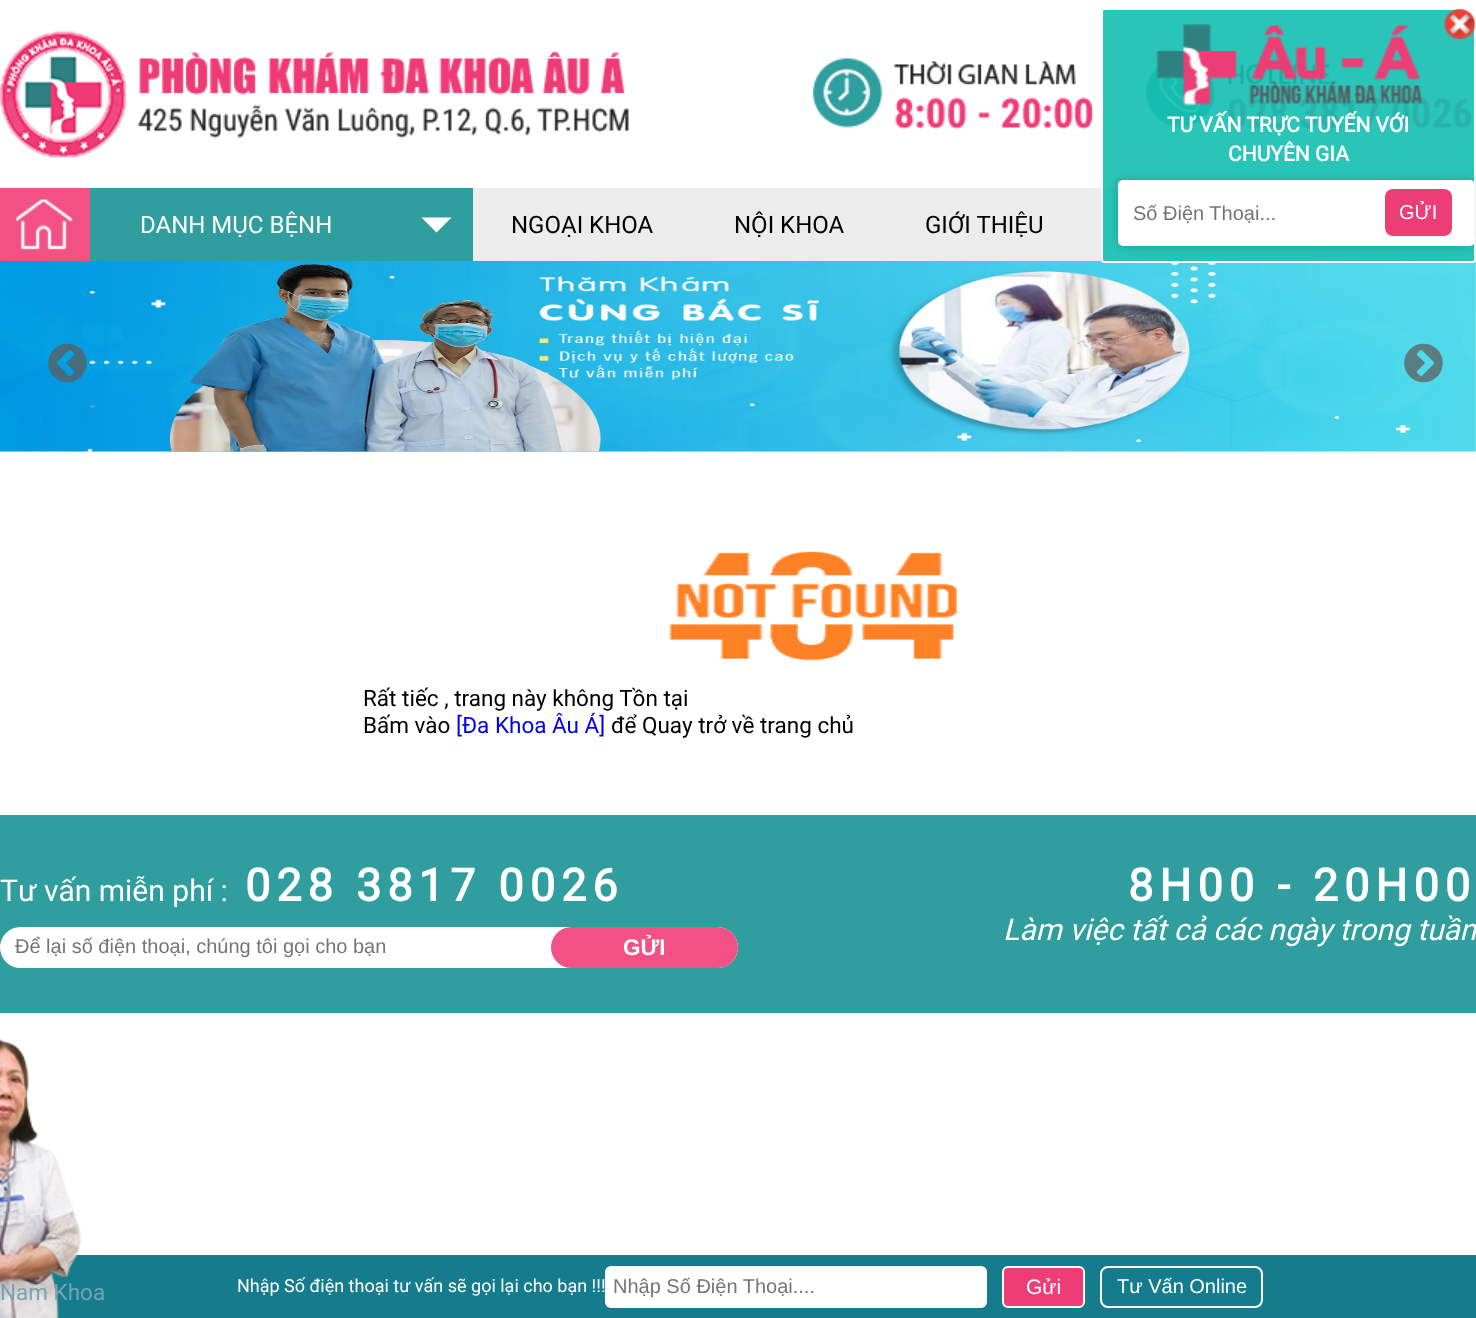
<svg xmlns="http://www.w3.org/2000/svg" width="1476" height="1318">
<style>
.a{font:24px Roboto;fill:#fff}
.b{font:24px Roboto;fill:#000}
.c{font:bold 21px Roboto;fill:#fff}
.d{font:20px Liberation Sans;fill:#757575}
.e{font:20px Liberation Sans;fill:#fff}
.f{font:22.5px Roboto;fill:#000}
.g{font:22.5px Roboto;fill:#00e}
.h{font:30px Roboto;fill:#fff}
.i{font:bold 45px Roboto;letter-spacing:6px;fill:#fff}
.j{font:bold 22.5px Liberation Sans;fill:#fff}
.k{font:italic 30px Roboto;fill:#fff}
.l{font:22.5px Roboto;fill:#76a5af}
.m{font:18px Roboto;fill:#fff}
.n{font:21px Liberation Sans;fill:#fff}
</style>
<rect width="100%" height="100%" fill="#fff"/>
<image href="1.png" x="0" y="31" width="629" height="127"/>
<image href="2.png" x="812" y="58" width="281" height="72"/>
<image href="3.png" x="1145" y="64" width="327" height="66"/>
<path fill="#ececec" d="M473 188h1003v73H473z"/>
<path fill="#309e9f" d="M90 188h383v73H90z"/>
<path fill="#f25185" d="M0 188h90v73H0z"/>
<image href="4.png" x="16" y="199" width="57" height="51"/>
<path fill="#fff" d="M421.5 217.5h30l-15 15z"/>
<image href="5.png" x="0" y="261" width="1476" height="191"/>
<image href="6.png" x="170" y="264" width="431" height="188"/>
<image href="7.png" x="48" y="343" width="39" height="40"/>
<image href="8.png" x="1404" y="343" width="39" height="40"/>
<path fill="#13bfb1e6" stroke="#fff" stroke-width="2" d="M1104 9h357c7.5 0 14 6.5 14 14v237c0 1-1 2-2 2h-369c-1 0-2-1-2-2v-249c0-1 1-2 2-2z"/>
<image href="9.png" x="1156" y="24" width="267" height="82"/>
<image href="10.png" x="1444" y="9" width="31" height="30"/>
<rect fill="#00000033" filter="blur(5px)" x="1118" y="180" width="357" height="66" rx="5"/>
<rect fill="#fff" x="1118" y="180" width="357" height="66" rx="5"/>
<rect fill="#ec3e75" x="1385" y="189" width="67" height="47" rx="8"/>
<image href="11.png" x="669" y="551" width="288" height="110"/>
<path fill="#309e9f" d="M0 815h1476v198H0z"/>
<rect fill="#fff" y="927" width="738" height="41" rx="20.5"/>
<rect fill="#f25185" x="551" y="927" width="187" height="41" rx="20.5"/>
<path fill="#157c8d" d="M49 1255h1427v63H49z"/>
<image href="12.png" x="0" y="1039" width="82" height="279"/>
<rect fill="#fff" x="605" y="1266" width="382" height="42" rx="6"/>
<rect fill="#ee3d76" stroke="#fff" stroke-width="2" x="1003" y="1267" width="81" height="40" rx="5"/>
<rect fill="none" stroke="#fff" stroke-width="2" x="1101" y="1267" width="161" height="40" rx="7"/>
<text class="a" x="140" y="233">DANH MỤC BỆNH</text>
<text class="b" x="511" y="233">NGOẠI KHOA</text>
<text class="b" x="734" y="233">NỘI KHOA</text>
<text class="b" x="925" y="233">GIỚI THIỆU</text>
<text class="c" x="1167" y="132">TƯ VẤN TRỰC TUYẾN VỚI</text>
<text class="c" x="1228" y="161">CHUYÊN GIA</text>
<text class="d" x="1133" y="220">Số Điện Thoại...</text>
<text class="e" x="1399" y="219">GỬI</text>
<text class="f" x="363" y="706">Rất tiếc , trang này không Tồn tại</text>
<text class="f" x="363" y="733">Bấm vào</text>
<text class="g" x="456" y="733">[Đa Khoa Âu Á]</text>
<text class="f" x="611" y="733">để Quay trở về trang chủ</text>
<text class="h" x="0" y="901">Tư vấn miễn phí :</text>
<text class="i" x="245" y="901">028 3817 0026</text>
<text class="d" x="15" y="953">Để lại số điện thoại, chúng tôi gọi cho bạn</text>
<text class="j" x="623" y="955">GỬI</text>
<text class="i" x="1128" y="901">8H00 - 20H00</text>
<text class="k" x="1003" y="940">Làm việc tất cả các ngày trong tuần</text>
<text class="l" x="0" y="1300">Nam Khoa</text>
<text class="m" x="237" y="1292">Nhập Số điện thoại tư vấn sẽ gọi lại cho bạn !!!</text>
<text class="d" x="613" y="1293">Nhập Số Điện Thoại....</text>
<text class="n" x="1026" y="1294">Gửi</text>
<text class="e" x="1117" y="1293">Tư Vấn Online</text>
</svg>
